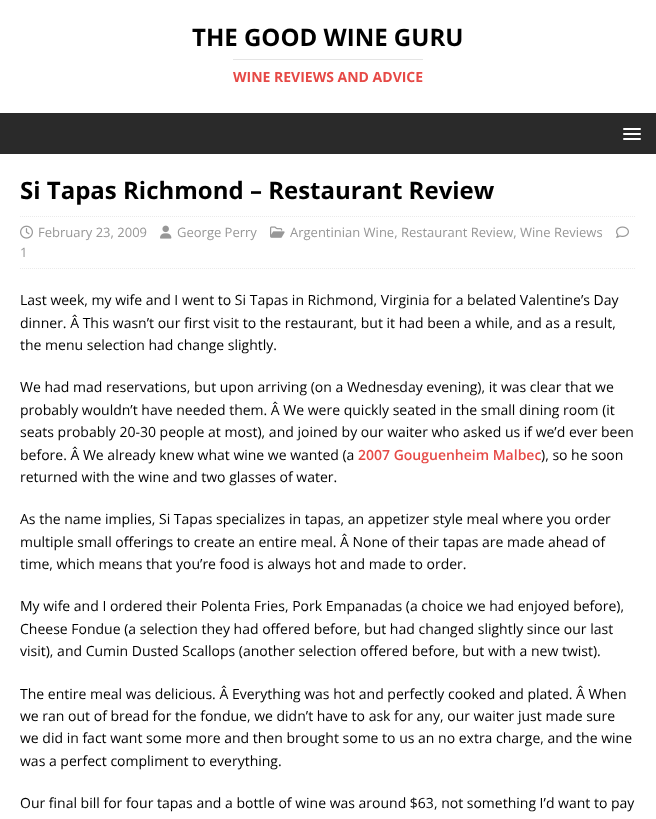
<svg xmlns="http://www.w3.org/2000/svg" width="656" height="819">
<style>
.a{font:bold 24px Open Sans;fill:#000}
.b{font:bold 14px Open Sans;fill:#e64946}
.c{font:13px Open Sans;fill:#979797}
.d{font:14px Open Sans;fill:#000}
.e{font:600 14px Open Sans;fill:#e64946}
</style>
<rect width="100%" height="100%" fill="#fff"/>
<path fill="#e5e5e5" d="M233 59h190v1H233z"/>
<path fill="#2a2a2a" d="M0 113h656v41H0z"/>
<rect fill="#fff" x="623" y="128" width="18" height="2" rx="1"/>
<rect fill="#fff" x="623" y="133" width="18" height="2" rx="1"/>
<rect fill="#fff" x="623" y="138" width="18" height="2" rx="1"/>
<path fill="none" stroke="#ebebeb" stroke-dasharray="1 1" d="M20 216.5h616"/>
<path fill="none" stroke="#ebebeb" stroke-dasharray="1 1" d="M20 268.5h616"/>
<image href="1.png" x="20" y="225" width="13" height="14"/>
<image href="2.png" x="160" y="225" width="12" height="14"/>
<image href="3.png" x="270" y="226" width="15" height="12"/>
<image href="4.png" x="616" y="226" width="13" height="12"/>
<text class="a" x="192" y="46">THE GOOD WINE GURU</text>
<text class="b" x="233" y="82">WINE REVIEWS AND ADVICE</text>
<text class="a" x="20" y="199">Si Tapas Richmond – Restaurant Review</text>
<text class="c" x="38" y="237">February 23, 2009</text>
<text class="c" x="177" y="237">George Perry</text>
<text class="c" x="290" y="237">Argentinian Wine, Restaurant Review, Wine Reviews</text>
<text class="c" x="20" y="257">1</text>
<text class="d" x="20" y="305">Last week, my wife and I went to Si Tapas in Richmond, Virginia for a belated Valentine’s Day</text>
<text class="d" x="20" y="328">dinner. Â This wasn’t our first visit to the restaurant, but it had been a while, and as a result,</text>
<text class="d" x="20" y="350">the menu selection had change slightly.</text>
<text class="d" x="20" y="392">We had mad reservations, but upon arriving (on a Wednesday evening), it was clear that we</text>
<text class="d" x="20" y="415">probably wouldn’t have needed them. Â We were quickly seated in the small dining room (it</text>
<text class="d" x="20" y="437">seats probably 20-30 people at most), and joined by our waiter who asked us if we’d ever been</text>
<text class="d" x="20" y="460">before. Â We already knew what wine we wanted (a</text>
<text class="e" x="358" y="460">2007 Gouguenheim Malbec</text>
<text class="d" x="541" y="460">), so he soon</text>
<text class="d" x="20" y="482">returned with the wine and two glasses of water.</text>
<text class="d" x="20" y="524">As the name implies, Si Tapas specializes in tapas, an appetizer style meal where you order</text>
<text class="d" x="20" y="547">multiple small offerings to create an entire meal. Â None of their tapas are made ahead of</text>
<text class="d" x="20" y="569">time, which means that you’re food is always hot and made to order.</text>
<text class="d" x="20" y="611">My wife and I ordered their Polenta Fries, Pork Empanadas (a choice we had enjoyed before),</text>
<text class="d" x="20" y="634">Cheese Fondue (a selection they had offered before, but had changed slightly since our last</text>
<text class="d" x="20" y="656">visit), and Cumin Dusted Scallops (another selection offered before, but with a new twist).</text>
<text class="d" x="20" y="699">The entire meal was delicious. Â Everything was hot and perfectly cooked and plated. Â When</text>
<text class="d" x="20" y="721">we ran out of bread for the fondue, we didn’t have to ask for any, our waiter just made sure</text>
<text class="d" x="20" y="743">we did in fact want some more and then brought some to us an no extra charge, and the wine</text>
<text class="d" x="20" y="766">was a perfect compliment to everything.</text>
<text class="d" x="20" y="808">Our final bill for four tapas and a bottle of wine was around $63, not something I’d want to pay</text>
</svg>
